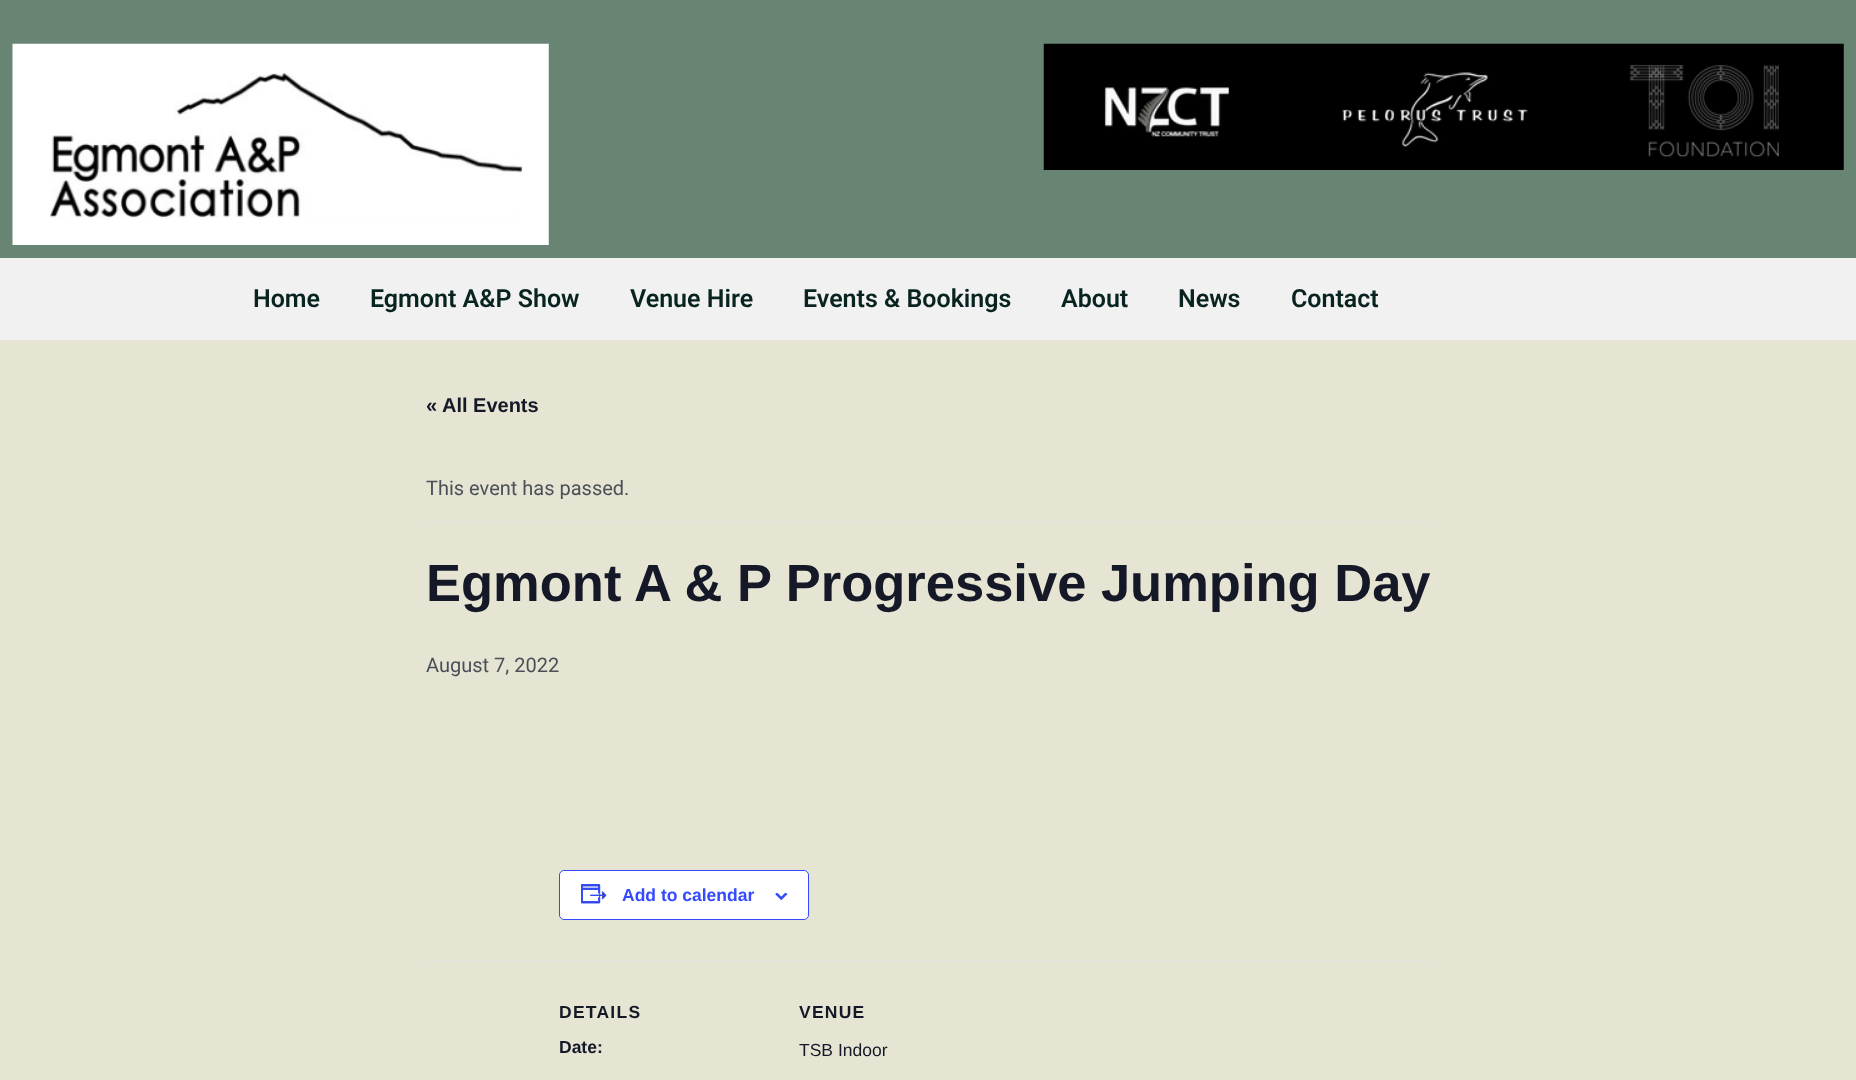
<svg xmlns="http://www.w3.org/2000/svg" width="1856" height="1080">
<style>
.a{font:600 25px Roboto;fill:#082320}
.b{font:bold 20px Liberation Sans;fill:#141827}
.c{font:20px Roboto;fill:#4b4f58}
.d{font:bold 52.5px Liberation Sans;fill:#141827}
.e{font:bold 17.5px Liberation Sans;fill:#334aff}
.f{font:bold 17.5px Liberation Sans;letter-spacing:1.25px;fill:#141827}
.g{font:bold 17.5px Liberation Sans;fill:#141827}
.h{font:17.5px Liberation Sans;fill:#141827}
</style>
<rect width="100%" height="100%" fill="#688573"/>
<image href="1.png" x="12" y="43" width="537" height="202"/>
<image href="2.png" x="1043" y="43" width="801" height="127"/>
<path fill="#f1f1f1" d="M0 258h1856v82H0z"/>
<path fill="#e6e5d3" d="M0 340h1856v740H0z"/>
<path fill="#e4e4e4" d="M426 521h1004v1H426z"/>
<rect fill="#fff" stroke="#334aff" x="559.5" y="870.5" width="249" height="49" rx="4.5"/>
<image href="3.png" x="581" y="884" width="26" height="20"/>
<image href="4.png" x="775" y="893" width="13" height="7"/>
<path fill="#e4e4e4" d="M426 960h1004v1H426z"/>
<text class="a" x="253" y="307">Home</text>
<text class="a" x="370" y="307">Egmont A&amp;P Show</text>
<text class="a" x="630" y="307">Venue Hire</text>
<text class="a" x="803" y="307">Events &amp; Bookings</text>
<text class="a" x="1061" y="307">About</text>
<text class="a" x="1178" y="307">News</text>
<text class="a" x="1291" y="307">Contact</text>
<text class="b" x="426" y="412">« All Events</text>
<text class="c" x="426" y="495">This event has passed.</text>
<text class="d" x="426" y="601">Egmont A &amp; P Progressive Jumping Day</text>
<text class="c" x="426" y="672">August 7, 2022</text>
<text class="e" x="622" y="901">Add to calendar</text>
<text class="f" x="559" y="1018">DETAILS</text>
<text class="g" x="559" y="1053">Date:</text>
<text class="f" x="799" y="1018">VENUE</text>
<text class="h" x="799" y="1056">TSB Indoor</text>
</svg>
